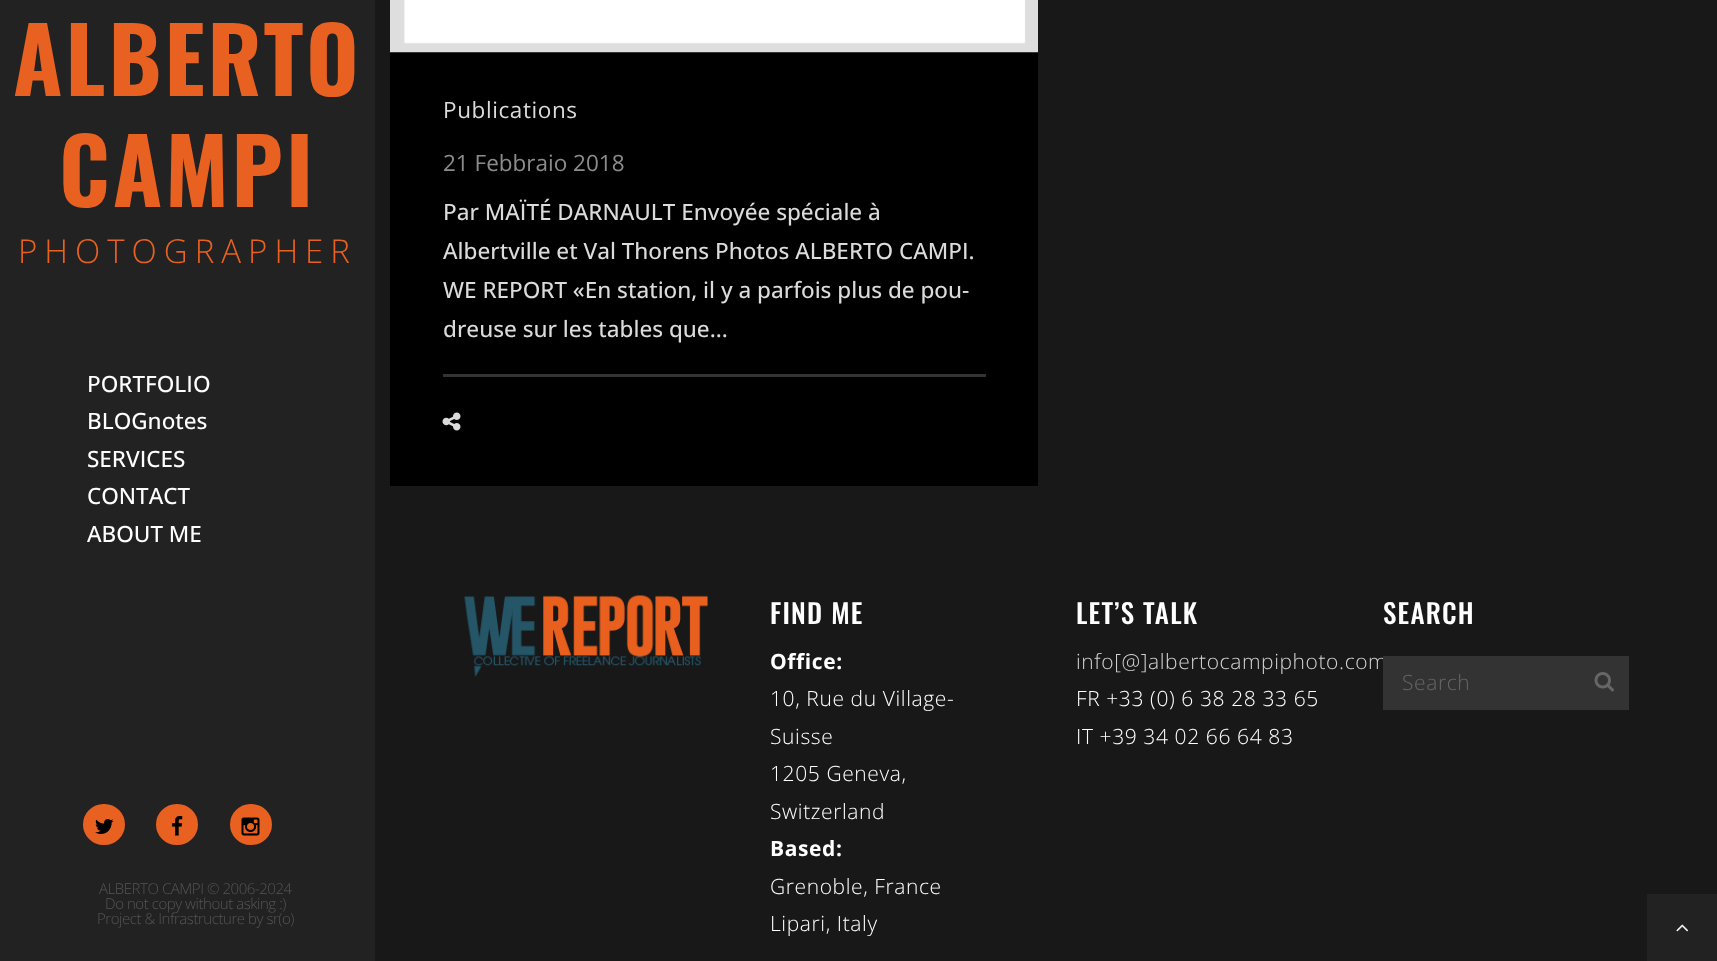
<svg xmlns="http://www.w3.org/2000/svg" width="1717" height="961">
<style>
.a{font:bold 90px Oswald;letter-spacing:3px;fill:#e86121}
.b{font:300 33px Open Sans;letter-spacing:7px;fill:#e86121}
.c{font:500 22.5px Open Sans;fill:#fff}
.d{font:22.5px Open Sans;letter-spacing:0.6px;fill:#dbdbdb}
.e{font:22.5px Open Sans;fill:#8b8d8b}
.f{font:500 22.5px Open Sans;fill:#dbdbdb}
.g{font:500 27px Oswald;letter-spacing:1.25px;fill:#fff}
.h{font:bold 21px Open Sans;letter-spacing:0.6px;fill:#fff}
.i{font:300 21px Open Sans;letter-spacing:0.6px;fill:#fff}
.j{font:300 21px Open Sans;letter-spacing:0.6px;fill:#d3d3d3}
.k{font:300 21px Open Sans;letter-spacing:0.6px;fill:#666}
.l{font:300 15px Open Sans;letter-spacing:-0.45px;fill:#555}
</style>
<rect width="100%" height="100%" fill="#181818"/>
<path fill="#222" d="M0 0h375v961H0z"/>
<path fill="#000" d="M390 52h648v434H390z"/>
<image href="1.png" x="390" y="0" width="648" height="53"/>
<path fill="#333" d="M443 374h543v3H443z"/>
<image href="2.png" x="442" y="412" width="19" height="19"/>
<image href="3.png" x="464" y="595" width="244" height="82"/>
<rect fill="#e86121" stroke="#e86121" stroke-width="3" x="84.5" y="805.5" width="39" height="38" rx="19"/>
<image href="5.png" x="95" y="819" width="19" height="15"/>
<rect fill="#e86121" stroke="#e86121" stroke-width="3" x="157.5" y="805.5" width="39" height="38" rx="19"/>
<image href="6.png" x="172" y="816" width="11" height="20"/>
<rect fill="#e86121" stroke="#e86121" stroke-width="3" x="231.5" y="805.5" width="39" height="38" rx="19"/>
<image href="7.png" x="241" y="817" width="19" height="19"/>
<path fill="#222" d="M1647 894h70v67H1647z"/>
<image href="8.png" x="1676" y="924" width="13" height="8"/>
<text class="a" x="13" y="96">ALBERTO</text>
<text class="a" x="59" y="207">CAMPI</text>
<text class="b" x="18" y="263">PHOTOGRAPHER</text>
<text class="c" x="87" y="392">PORTFOLIO</text>
<text class="c" x="87" y="429">BLOGnotes</text>
<text class="c" x="87" y="467">SERVICES</text>
<text class="c" x="87" y="504">CONTACT</text>
<text class="c" x="87" y="542">ABOUT ME</text>
<text class="d" x="443" y="118">Publications</text>
<text class="e" x="443" y="171">21 Febbraio 2018</text>
<text class="f" x="443" y="220">Par MAÏTÉ DARNAULT Envoyée spéciale à</text>
<text class="f" x="443" y="259">Albertville et Val Thorens Photos ALBERTO CAMPI.</text>
<text class="f" x="443" y="298">WE REPORT «En station, il y a parfois plus de pou-</text>
<text class="f" x="443" y="337">dreuse sur les tables que...</text>
<text class="g" x="770" y="624">FIND ME</text>
<text class="h" x="770" y="669">Office:</text>
<text class="i" x="770" y="706">10, Rue du Village-</text>
<text class="i" x="770" y="744">Suisse</text>
<text class="i" x="770" y="781">1205 Geneva,</text>
<text class="i" x="770" y="819">Switzerland</text>
<text class="h" x="770" y="856">Based:</text>
<text class="i" x="770" y="894">Grenoble, France</text>
<text class="i" x="770" y="931">Lipari, Italy</text>
<text class="g" x="1076" y="624">LET’S TALK</text>
<text class="j" x="1076" y="669">info[@]albertocampiphoto.com</text>
<text class="i" x="1076" y="706">FR +33 (0) 6 38 28 33 65</text>
<text class="i" x="1076" y="744">IT +39 34 02 66 64 83</text>
<text class="g" x="1383" y="624">SEARCH</text>
<path fill="#333" d="M1383 656h246v54H1383z"/>
<text class="k" x="1402" y="690">Search</text>
<image href="4.png" x="1594" y="672" width="20" height="20"/>
<text class="l" x="99" y="894">ALBERTO CAMPI © 2006-2024</text>
<text class="l" x="105" y="909">Do not copy without asking :)</text>
<text class="l" x="97" y="924">Project &amp; Infrastructure by sr(o)</text>
</svg>
